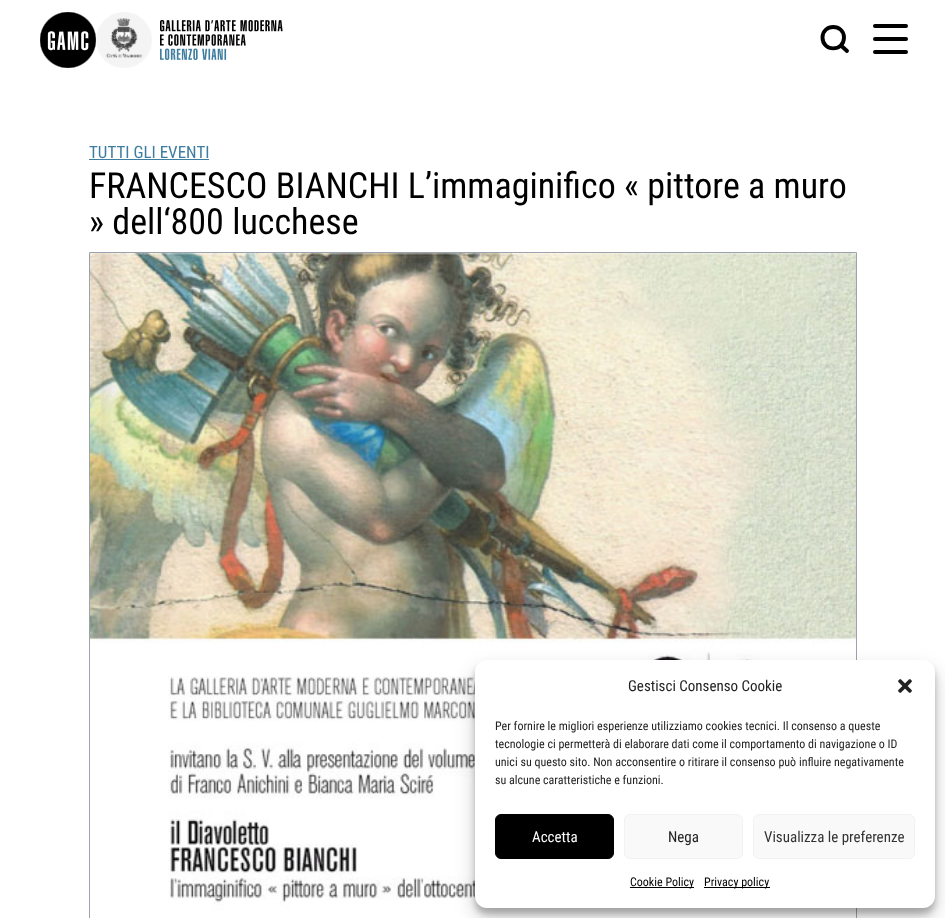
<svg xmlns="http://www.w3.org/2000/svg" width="945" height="918">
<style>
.a{font:17px Roboto Condensed;fill:#3d7da0}
.b{font:36px Roboto Condensed;fill:#000}
.c{font:15px Roboto Condensed;fill:#222}
.d{font:12px Roboto Condensed;fill:#222}
.e{font:15px Roboto Condensed;fill:#fff}
.f{font:15px Roboto Condensed;fill:#333}
.g{font:12px Roboto Condensed;fill:#000}
</style>
<rect width="100%" height="100%" fill="#fff"/>
<image href="1.png" x="40" y="12" width="56" height="56"/>
<image href="2.png" x="96" y="12" width="56" height="56"/>
<image href="3.png" x="160" y="20" width="123" height="40"/>
<path fill="none" stroke="#000" stroke-width="3.9" stroke-linecap="round" stroke-linejoin="round" d="M844 37.5c0 14.5-21.5 14.5-21.5 0c0-14 21.5-14 21.5 0zm3 13.5l-6-5.5"/>
<rect fill="#000" x="873" y="24" width="35" height="4" rx="2"/>
<rect fill="#000" x="873" y="37" width="35" height="4" rx="2"/>
<rect fill="#000" x="873" y="50" width="35" height="4" rx="2"/>
<path fill="#3d7da0" d="M89 159h120v1H89z"/>
<path fill="none" stroke="#9ca3af" d="M89.5 252.5h767v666H89.5z"/>
<image href="4.png" x="90" y="253" width="766" height="657"/>
<rect fill="#0000003b" filter="blur(3px)" x="475" y="666" width="460" height="248" rx="12"/>
<rect fill="#00000030" filter="blur(10px)" x="475" y="670" width="460" height="248" rx="12"/>
<rect fill="#fff" x="475" y="660" width="460" height="248" rx="12"/>
<image href="5.png" x="898" y="679" width="14" height="14"/>
<rect fill="#000" stroke="#000" x="495.5" y="814.5" width="118" height="44" rx="5.5"/>
<rect fill="#f9f9f9" stroke="#f2f2f2" x="624.5" y="814.5" width="118" height="44" rx="5.5"/>
<rect fill="#f9f9f9" stroke="#f2f2f2" x="753.5" y="814.5" width="161" height="44" rx="5.5"/>
<path fill="#000" d="M630 887h64v1H630z"/>
<path fill="#000" d="M704 887h66v1H704z"/>
<text class="a" x="89" y="158">TUTTI GLI EVENTI</text>
<text class="b" x="89" y="198">FRANCESCO BIANCHI L’immaginifico « pittore a muro</text>
<text class="b" x="89" y="234">» dell‘800 lucchese</text>
<text class="c" x="628" y="691">Gestisci Consenso Cookie</text>
<text class="d" x="495" y="730">Per fornire le migliori esperienze utilizziamo cookies tecnici. Il consenso a queste</text>
<text class="d" x="495" y="748">tecnologie ci permetterà di elaborare dati come il comportamento di navigazione o ID</text>
<text class="d" x="495" y="766">unici su questo sito. Non acconsentire o ritirare il consenso può influire negativamente</text>
<text class="d" x="495" y="784">su alcune caratteristiche e funzioni.</text>
<text class="e" x="532" y="842">Accetta</text>
<text class="c" x="668" y="842">Nega</text>
<text class="f" x="764" y="842">Visualizza le preferenze</text>
<text class="g" x="630" y="886">Cookie Policy</text>
<text class="g" x="704" y="886">Privacy policy</text>
</svg>
